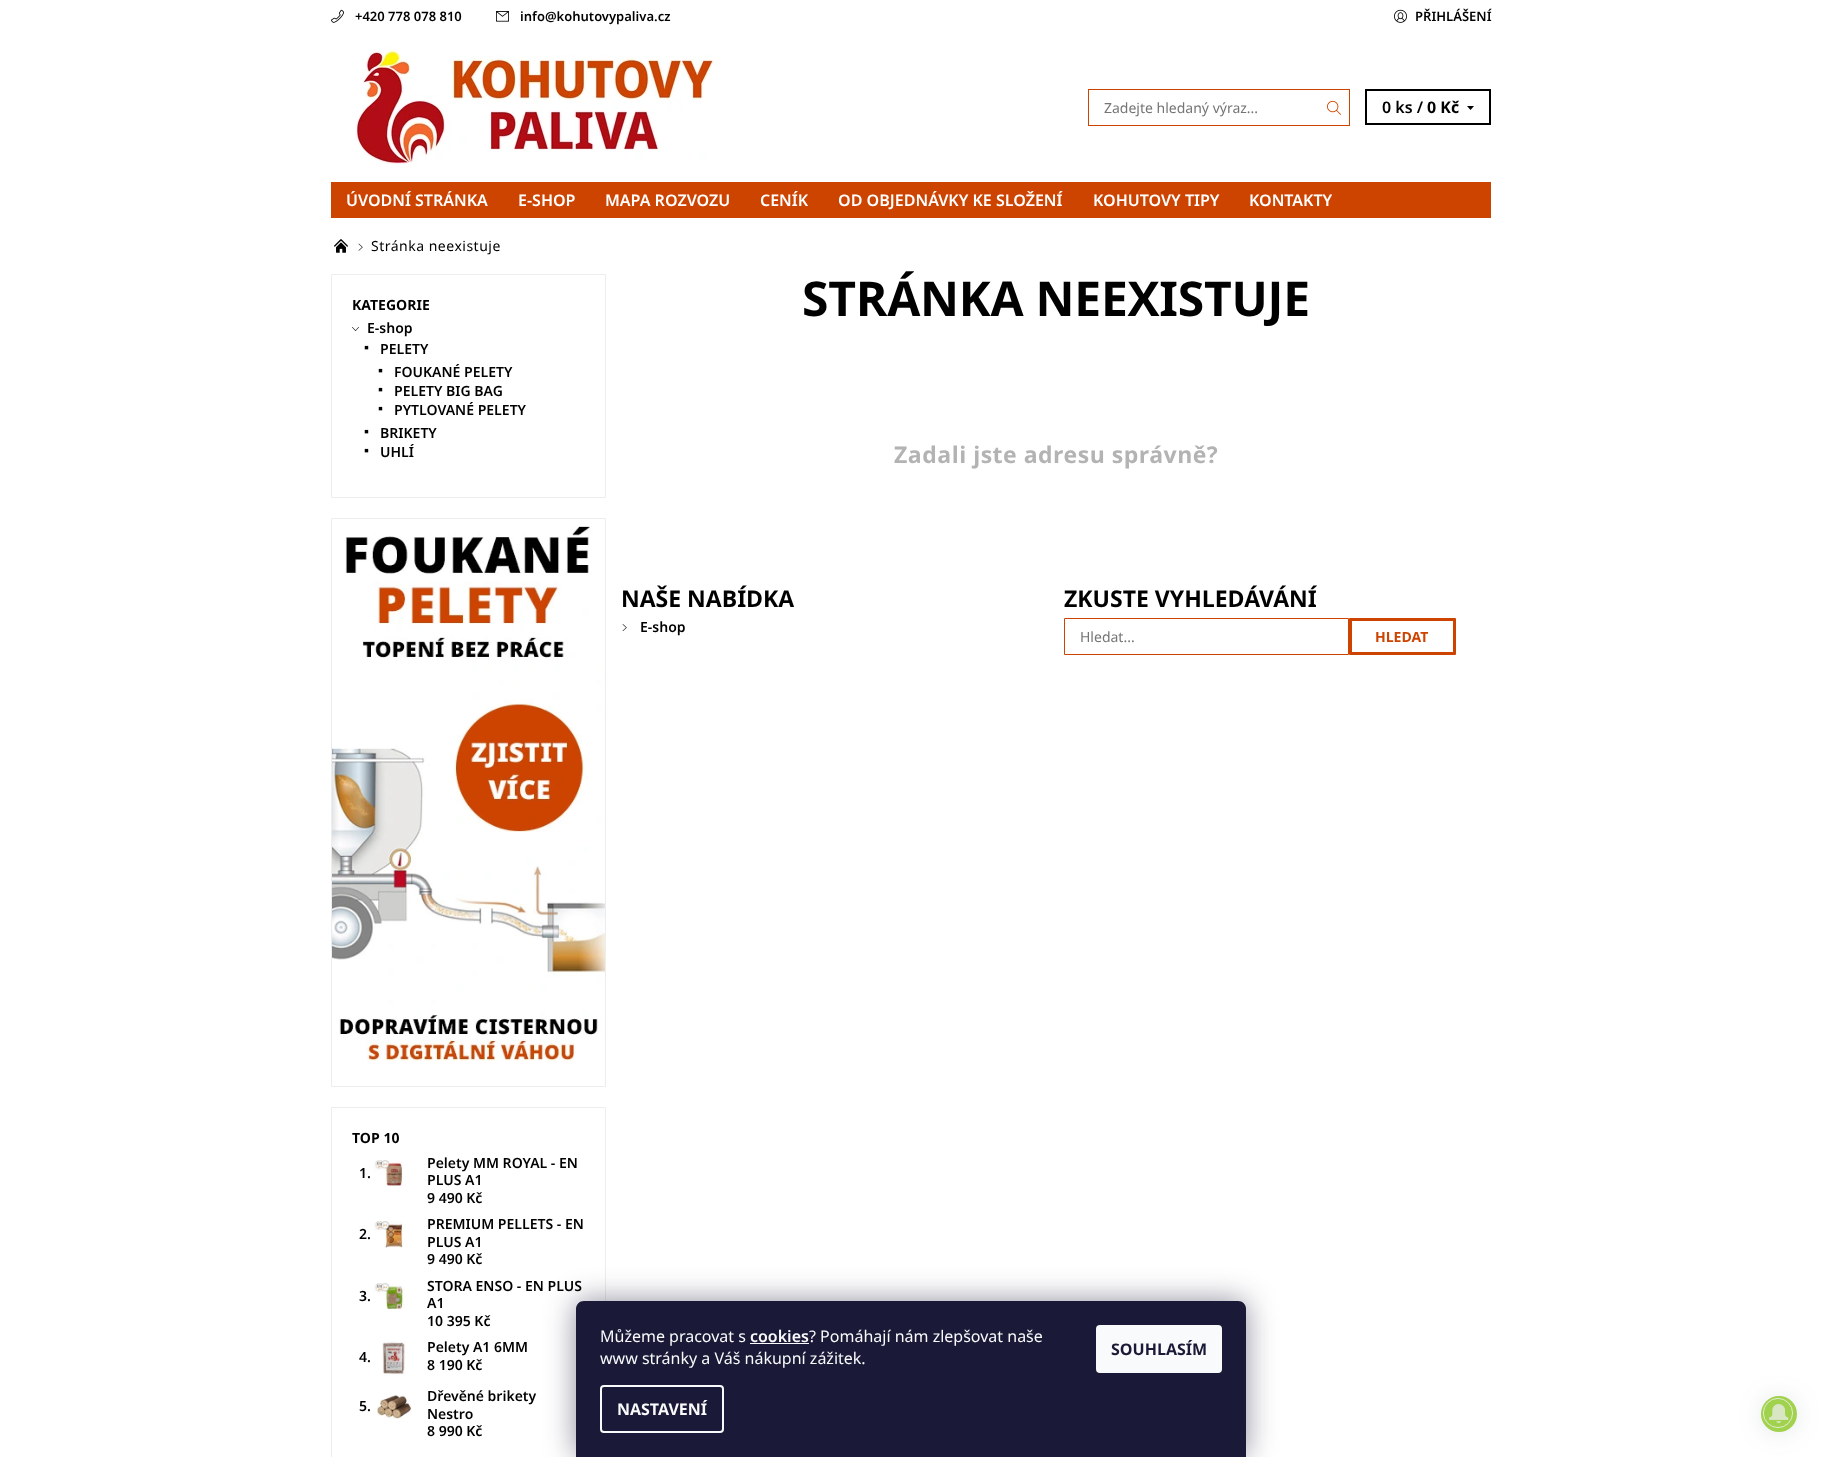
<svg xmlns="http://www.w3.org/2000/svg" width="1822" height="1457">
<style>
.a{font:600 13px Noto Sans;fill:#000}
.b{font:14px Noto Sans;fill:#757575}
.c{font:600 16px Noto Sans;fill:#000}
.d{font:bold 16px Noto Sans;fill:#000}
.e{font:600 16px Noto Sans;fill:#fff}
.f{font:14px Noto Sans;letter-spacing:0.5px;fill:#000}
.g{font:bold 14px Noto Sans;fill:#000}
.h{font:600 14px Noto Sans;fill:#000}
.i{font:14px Liberation Serif;fill:#000}
.j{font:bold 48px Noto Sans;letter-spacing:-0.25px;fill:#000}
.k{font:bold 23px Noto Sans;letter-spacing:0.5px;fill:#b3b3b3}
.l{font:bold 23px Noto Sans;fill:#000}
.m{font:bold 14px Noto Sans;fill:#cd4400}
.n{font:16px Noto Sans;fill:#f8fafb}
.o{font:600 16px Noto Sans;fill:#f8fafb}
.p{font:bold 16px Noto Sans;fill:#f8fafb}
.q{font:bold 16px Noto Sans;fill:#1a1937}
</style>
<rect width="100%" height="100%" fill="#fff"/>
<image href="1.png" x="331" y="9" width="13" height="14"/>
<image href="2.png" x="496" y="11" width="13" height="11"/>
<image href="3.png" x="1394" y="9" width="13" height="14"/>
<image href="4.png" x="355" y="47" width="359" height="120"/>
<path fill="#cd4400" d="M1088 89h262v1H1088z"/>
<path fill="#cd4400" d="M1088 125h231v1H1088z"/>
<path fill="#cd4400" d="M1088 89h1v37H1088z"/>
<path fill="#cd4400" d="M1349 89h1v37H1349z"/>
<path fill="#cd4400" d="M1319 125h31v1H1319z"/>
<image href="5.png" x="1327" y="100" width="14" height="15"/>
<path fill="none" stroke="#000" stroke-width="2" d="M1366 90h124v34H1366z"/>
<path fill="#000" d="M1470.5 106h3.5l-3.5 4l-3.5-4z"/>
<path fill="#cd4400" d="M331 182h1160v36H331z"/>
<image href="6.png" x="334" y="239" width="14" height="14"/>
<image href="7.png" x="358" y="243" width="5" height="8"/>
<path fill="none" stroke="#ededed" d="M331.5 274.5h274v223H331.5z"/>
<image href="8.png" x="352" y="327" width="7" height="4"/>
<path fill="none" stroke="#ededed" d="M331.5 518.5h274v568H331.5z"/>
<image href="9.png" x="332" y="526" width="273" height="535"/>
<path fill="none" stroke="#ededed" d="M331.5 1107.5h274v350H331.5z"/>
<image href="10.png" x="374" y="1160" width="32" height="26"/>
<image href="11.png" x="374" y="1221" width="30" height="27"/>
<image href="12.png" x="374" y="1283" width="32" height="27"/>
<image href="13.png" x="382" y="1341" width="24" height="35"/>
<image href="14.png" x="377" y="1394" width="35" height="25"/>
<image href="15.png" x="622" y="624" width="5" height="7"/>
<path fill="none" stroke="#cd4400" d="M1064.5 618.5h284v36H1064.5z"/>
<path fill="none" stroke="#cd4400" stroke-width="2" d="M1351 620h103v33H1351z"/>
<path fill="none" stroke="#cd4400" d="M1349.5 618.5h106v36H1349.5z"/>
<rect fill="#44546126" filter="blur(12px)" x="1761" y="1397" width="36" height="36" rx="18"/>
<circle fill="#a1d24d" cx="1779" cy="1414" r="18"/>
<circle fill="none" stroke="#f1f1f1" stroke-width="0.8" cx="1778" cy="1413" r="14.6"/>
<image href="16.png" x="1769" y="1404" width="20" height="20"/>
<rect fill="#1b193980" filter="blur(15px)" x="576" y="1301" width="670" height="156" rx="8"/>
<path fill="#1a1937" d="M584 1301h654c4.5 0 8 3.5 8 8v148h-670v-148c0-4.5 3.5-8 8-8z"/>
<path fill="#f8fafb" d="M750 1343h59v1H750z"/>
<rect fill="none" stroke="#f8fafb" stroke-width="2" x="601" y="1386" width="122" height="46" rx="3"/>
<rect fill="#f8fafb" x="1096" y="1325" width="126" height="48" rx="4"/>
<text class="a" x="355" y="21">+420 778 078 810</text>
<text class="a" x="520" y="21">info@kohutovypaliva.cz</text>
<text class="a" x="1415" y="21">PŘIHLÁŠENÍ</text>
<text class="b" x="1104" y="113">Zadejte hledaný výraz...</text>
<text class="c" x="1382" y="113">0 ks /</text>
<text class="d" x="1427" y="113">0 Kč</text>
<text class="e" x="346" y="206">ÚVODNÍ STRÁNKA</text>
<text class="e" x="518" y="206">E-SHOP</text>
<text class="e" x="605" y="206">MAPA ROZVOZU</text>
<text class="e" x="760" y="206">CENÍK</text>
<text class="e" x="838" y="206">OD OBJEDNÁVKY KE SLOŽENÍ</text>
<text class="e" x="1093" y="206">KOHUTOVY TIPY</text>
<text class="e" x="1249" y="206">KONTAKTY</text>
<text class="f" x="371" y="251">Stránka neexistuje</text>
<text class="g" x="352" y="310">KATEGORIE</text>
<text class="h" x="367" y="333">E-shop</text>
<text class="i" x="364" y="352">▪</text>
<text class="h" x="380" y="354">PELETY</text>
<text class="i" x="378" y="375">▪</text>
<text class="h" x="394" y="377">FOUKANÉ PELETY</text>
<text class="i" x="378" y="394">▪</text>
<text class="h" x="394" y="396">PELETY BIG BAG</text>
<text class="i" x="378" y="413">▪</text>
<text class="h" x="394" y="415">PYTLOVANÉ PELETY</text>
<text class="i" x="364" y="436">▪</text>
<text class="h" x="380" y="438">BRIKETY</text>
<text class="i" x="364" y="455">▪</text>
<text class="h" x="380" y="457">UHLÍ</text>
<text class="g" x="352" y="1143">TOP 10</text>
<text class="h" x="359" y="1178">1.</text>
<text class="h" x="427" y="1168">Pelety MM ROYAL - EN</text>
<text class="h" x="427" y="1185">PLUS A1</text>
<text class="h" x="427" y="1203">9 490 Kč</text>
<text class="h" x="359" y="1239">2.</text>
<text class="h" x="427" y="1229">PREMIUM PELLETS - EN</text>
<text class="h" x="427" y="1247">PLUS A1</text>
<text class="h" x="427" y="1264">9 490 Kč</text>
<text class="h" x="359" y="1301">3.</text>
<text class="h" x="427" y="1291">STORA ENSO - EN PLUS</text>
<text class="h" x="427" y="1308">A1</text>
<text class="h" x="427" y="1326">10 395 Kč</text>
<text class="h" x="359" y="1362">4.</text>
<text class="h" x="427" y="1352">Pelety A1 6MM</text>
<text class="h" x="427" y="1370">8 190 Kč</text>
<text class="h" x="359" y="1411">5.</text>
<text class="h" x="427" y="1401">Dřevěné brikety</text>
<text class="h" x="427" y="1419">Nestro</text>
<text class="h" x="427" y="1436">8 990 Kč</text>
<text class="j" x="802" y="316">STRÁNKA NEEXISTUJE</text>
<text class="k" x="894" y="463">Zadali jste adresu správně?</text>
<text class="l" x="621" y="607">NAŠE NABÍDKA</text>
<text class="h" x="640" y="632">E-shop</text>
<text class="l" x="1064" y="607">ZKUSTE VYHLEDÁVÁNÍ</text>
<text class="b" x="1080" y="642">Hledat...</text>
<text class="m" x="1375" y="642">HLEDAT</text>
<text class="n" x="600" y="1342">Můžeme pracovat s</text>
<text class="o" x="750" y="1342">cookies</text>
<text class="n" x="809" y="1342">? Pomáhají nám zlepšovat naše</text>
<text class="n" x="600" y="1364">www stránky a Váš nákupní zážitek.</text>
<text class="p" x="617" y="1415">NASTAVENÍ</text>
<text class="q" x="1111" y="1355">SOUHLASÍM</text>
</svg>
